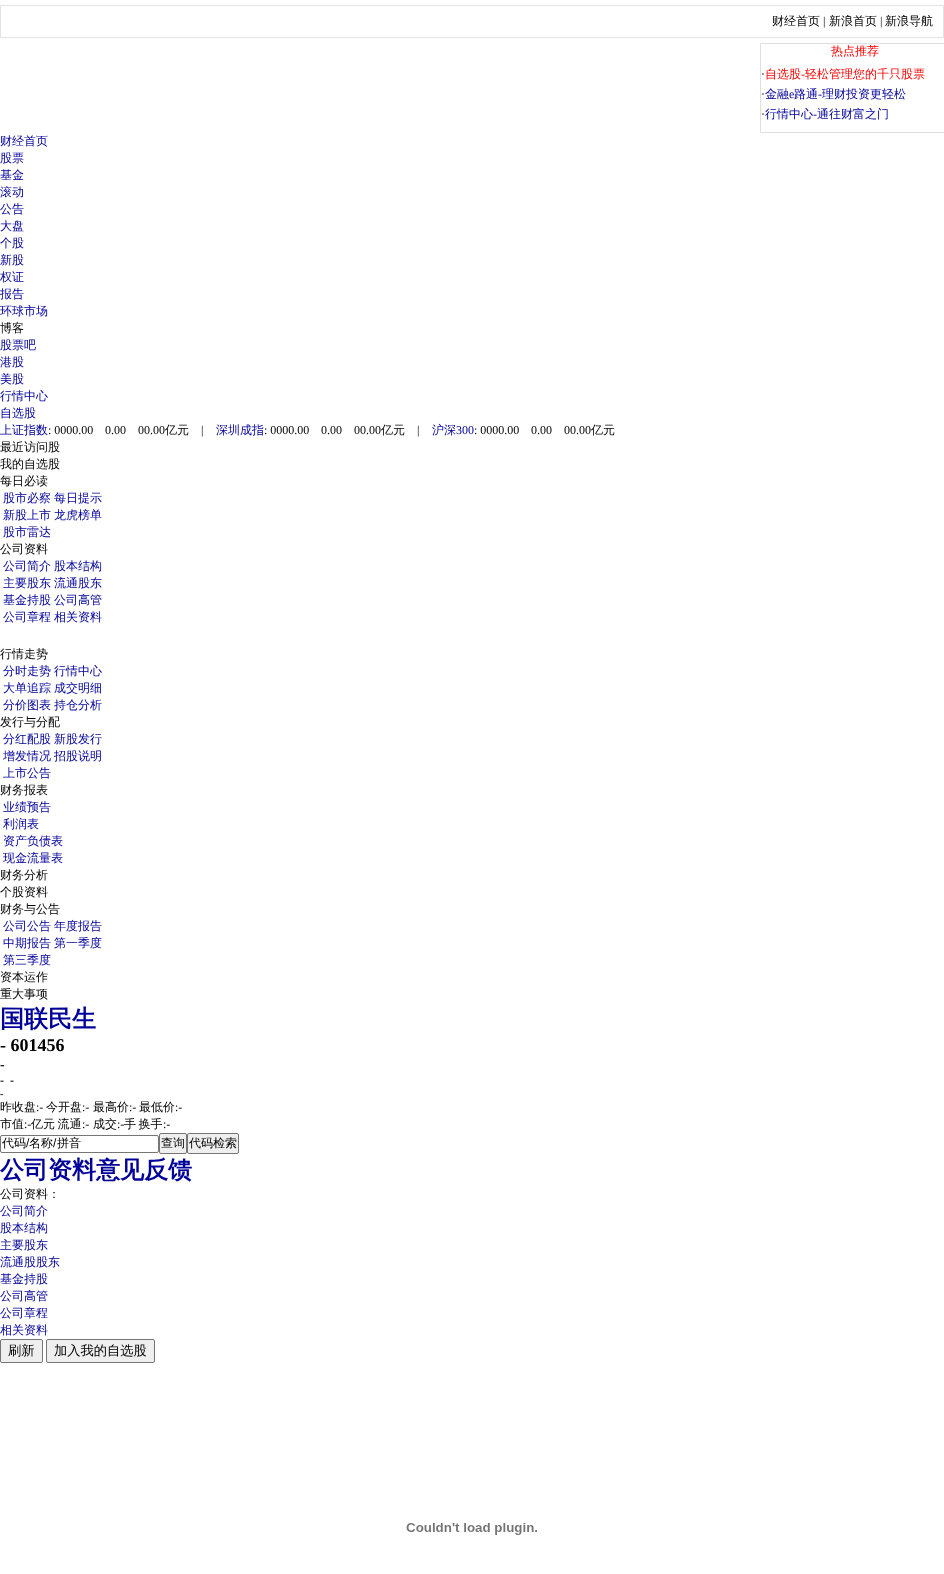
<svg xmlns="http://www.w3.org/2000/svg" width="944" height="1574">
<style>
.a{font:500 12px WenQuanYi Zen Hei;fill:#000}
.b{font:12px Liberation Serif;fill:#000}
.c{font:500 12px WenQuanYi Zen Hei;fill:#f00}
.d{font:12px Liberation Serif;fill:#f00}
.e{font:500 12px WenQuanYi Zen Hei;fill:#009}
.f{font:12px Liberation Serif;fill:#009}
.g{font:bold 24px WenQuanYi Zen Hei;fill:#009}
.h{font:bold 18px Liberation Serif;fill:#000}
.i{font:bold 14px Liberation Serif;fill:#000}
.j{font:bold 12px Liberation Serif;fill:#000}
.k{font:bold 10px Liberation Serif;fill:#000}
.l{font:12px Liberation Sans;fill:#000}
.m{font:500 13.25px WenQuanYi Zen Hei;fill:#000}
</style>
<rect width="100%" height="100%" fill="#fff"/>
<path fill="none" stroke="#e3e3e3" d="M0.5 5.5h943v32H0.5z"/>
<path fill="none" stroke="#dedede" d="M760.5 43.5h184v89H760.5z"/>
<rect fill="none" stroke="#767676" x="0.5" y="1135.5" width="158" height="17" rx="1.5"/>
<rect fill="#efefef" stroke="#767676" x="159.5" y="1133.5" width="27" height="20" rx="1.5"/>
<rect fill="#efefef" stroke="#767676" x="187.5" y="1133.5" width="51" height="20" rx="1.5"/>
<rect fill="#efefef" stroke="#767676" x="0.5" y="1339.5" width="42" height="23" rx="1.5"/>
<rect fill="#efefef" stroke="#767676" x="46.5" y="1339.5" width="108" height="23" rx="1.5"/>
<image href="1.png" x="406" y="1523" width="131" height="12"/>
<text class="a" x="772" y="25">财经首页</text>
<text class="b" x="823" y="25">|</text>
<text class="a" x="829" y="25">新浪首页</text>
<text class="b" x="880" y="25">|</text>
<text class="a" x="885" y="25">新浪导航</text>
<text class="c" x="831" y="55">热点推荐</text>
<text class="b" x="761" y="78">·</text>
<text class="c" x="765" y="78">自选股</text>
<text class="d" x="801" y="78">-</text>
<text class="c" x="805" y="78">轻松管理您的千只股票</text>
<text class="b" x="761" y="98">·</text>
<text class="e" x="765" y="98">金融</text>
<text class="f" x="789" y="98">e</text>
<text class="e" x="794" y="98">路通</text>
<text class="f" x="818" y="98">-</text>
<text class="e" x="822" y="98">理财投资更轻松</text>
<text class="b" x="761" y="118">·</text>
<text class="e" x="765" y="118">行情中心</text>
<text class="f" x="813" y="118">-</text>
<text class="e" x="817" y="118">通往财富之门</text>
<text class="e" x="0" y="145">财经首页</text>
<text class="e" x="0" y="162">股票</text>
<text class="e" x="0" y="179">基金</text>
<text class="e" x="0" y="196">滚动</text>
<text class="e" x="0" y="213">公告</text>
<text class="e" x="0" y="230">大盘</text>
<text class="e" x="0" y="247">个股</text>
<text class="e" x="0" y="264">新股</text>
<text class="e" x="0" y="281">权证</text>
<text class="e" x="0" y="298">报告</text>
<text class="e" x="0" y="315">环球市场</text>
<text class="a" x="0" y="332">博客</text>
<text class="e" x="0" y="349">股票吧</text>
<text class="e" x="0" y="366">港股</text>
<text class="e" x="0" y="383">美股</text>
<text class="e" x="0" y="400">行情中心</text>
<text class="e" x="0" y="417">自选股</text>
<text class="e" x="0" y="434">上证指数</text>
<text class="b" x="48" y="434">: 0000.00</text>
<text class="b" x="105" y="434">0.00</text>
<text class="b" x="138" y="434">00.00</text>
<text class="a" x="165" y="434">亿元</text>
<text class="b" x="201" y="434">|</text>
<text class="e" x="216" y="434">深圳成指</text>
<text class="b" x="264" y="434">: 0000.00</text>
<text class="b" x="321" y="434">0.00</text>
<text class="b" x="354" y="434">00.00</text>
<text class="a" x="381" y="434">亿元</text>
<text class="b" x="417" y="434">|</text>
<text class="e" x="432" y="434">沪深</text>
<text class="f" x="456" y="434">300</text>
<text class="b" x="474" y="434">: 0000.00</text>
<text class="b" x="531" y="434">0.00</text>
<text class="b" x="564" y="434">00.00</text>
<text class="a" x="591" y="434">亿元</text>
<text class="a" x="0" y="451">最近访问股</text>
<text class="a" x="0" y="468">我的自选股</text>
<text class="a" x="0" y="485">每日必读</text>
<text class="e" x="3" y="502">股市必察</text>
<text class="e" x="54" y="502">每日提示</text>
<text class="e" x="3" y="519">新股上市</text>
<text class="e" x="54" y="519">龙虎榜单</text>
<text class="e" x="3" y="536">股市雷达</text>
<text class="a" x="0" y="553">公司资料</text>
<text class="e" x="3" y="570">公司简介</text>
<text class="e" x="54" y="570">股本结构</text>
<text class="e" x="3" y="587">主要股东</text>
<text class="e" x="54" y="587">流通股东</text>
<text class="e" x="3" y="604">基金持股</text>
<text class="e" x="54" y="604">公司高管</text>
<text class="e" x="3" y="621">公司章程</text>
<text class="e" x="54" y="621">相关资料</text>
<text class="a" x="0" y="658">行情走势</text>
<text class="e" x="3" y="675">分时走势</text>
<text class="e" x="54" y="675">行情中心</text>
<text class="e" x="3" y="692">大单追踪</text>
<text class="e" x="54" y="692">成交明细</text>
<text class="e" x="3" y="709">分价图表</text>
<text class="e" x="54" y="709">持仓分析</text>
<text class="a" x="0" y="726">发行与分配</text>
<text class="e" x="3" y="743">分红配股</text>
<text class="e" x="54" y="743">新股发行</text>
<text class="e" x="3" y="760">增发情况</text>
<text class="e" x="54" y="760">招股说明</text>
<text class="e" x="3" y="777">上市公告</text>
<text class="a" x="0" y="794">财务报表</text>
<text class="e" x="3" y="811">业绩预告</text>
<text class="e" x="3" y="828">利润表</text>
<text class="e" x="3" y="845">资产负债表</text>
<text class="e" x="3" y="862">现金流量表</text>
<text class="a" x="0" y="879">财务分析</text>
<text class="a" x="0" y="896">个股资料</text>
<text class="a" x="0" y="913">财务与公告</text>
<text class="e" x="3" y="930">公司公告</text>
<text class="e" x="54" y="930">年度报告</text>
<text class="e" x="3" y="947">中期报告</text>
<text class="e" x="54" y="947">第一季度</text>
<text class="e" x="3" y="964">第三季度</text>
<text class="a" x="0" y="981">资本运作</text>
<text class="a" x="0" y="998">重大事项</text>
<text class="g" x="0" y="1027">国联民生</text>
<text class="h" x="0" y="1051">- 601456</text>
<text class="i" x="0" y="1069">-</text>
<text class="j" x="0" y="1084">-</text>
<text class="j" x="10" y="1084">-</text>
<text class="k" x="0" y="1097">-</text>
<text class="a" x="0" y="1111">昨收盘</text>
<text class="b" x="36" y="1111">:-</text>
<text class="a" x="46" y="1111">今开盘</text>
<text class="b" x="82" y="1111">:-</text>
<text class="a" x="93" y="1111">最高价</text>
<text class="b" x="129" y="1111">:-</text>
<text class="a" x="139" y="1111">最低价</text>
<text class="b" x="175" y="1111">:-</text>
<text class="a" x="0" y="1128">市值</text>
<text class="b" x="24" y="1128">:-</text>
<text class="a" x="31" y="1128" word-spacing="-1">亿元 流通</text>
<text class="b" x="82" y="1128">:-</text>
<text class="a" x="93" y="1128">成交</text>
<text class="b" x="117" y="1128">:-</text>
<text class="a" x="124" y="1128" word-spacing="-1">手 换手</text>
<text class="b" x="163" y="1128">:-</text>
<text class="a" x="2" y="1147">代码</text>
<text class="l" x="26" y="1147">/</text>
<text class="a" x="29" y="1147">名称</text>
<text class="l" x="53" y="1147">/</text>
<text class="a" x="57" y="1147">拼音</text>
<text class="a" x="161" y="1147">查询</text>
<text class="a" x="189" y="1147">代码检索</text>
<text class="g" x="0" y="1178">公司资料意见反馈</text>
<text class="a" x="0" y="1198">公司资料：</text>
<text class="e" x="0" y="1215">公司简介</text>
<text class="e" x="0" y="1232">股本结构</text>
<text class="e" x="0" y="1249">主要股东</text>
<text class="e" x="0" y="1266">流通股股东</text>
<text class="e" x="0" y="1283">基金持股</text>
<text class="e" x="0" y="1300">公司高管</text>
<text class="e" x="0" y="1317">公司章程</text>
<text class="e" x="0" y="1334">相关资料</text>
<text class="m" x="8" y="1355">刷新</text>
<text class="m" x="54" y="1355">加入我的自选股</text>
</svg>
